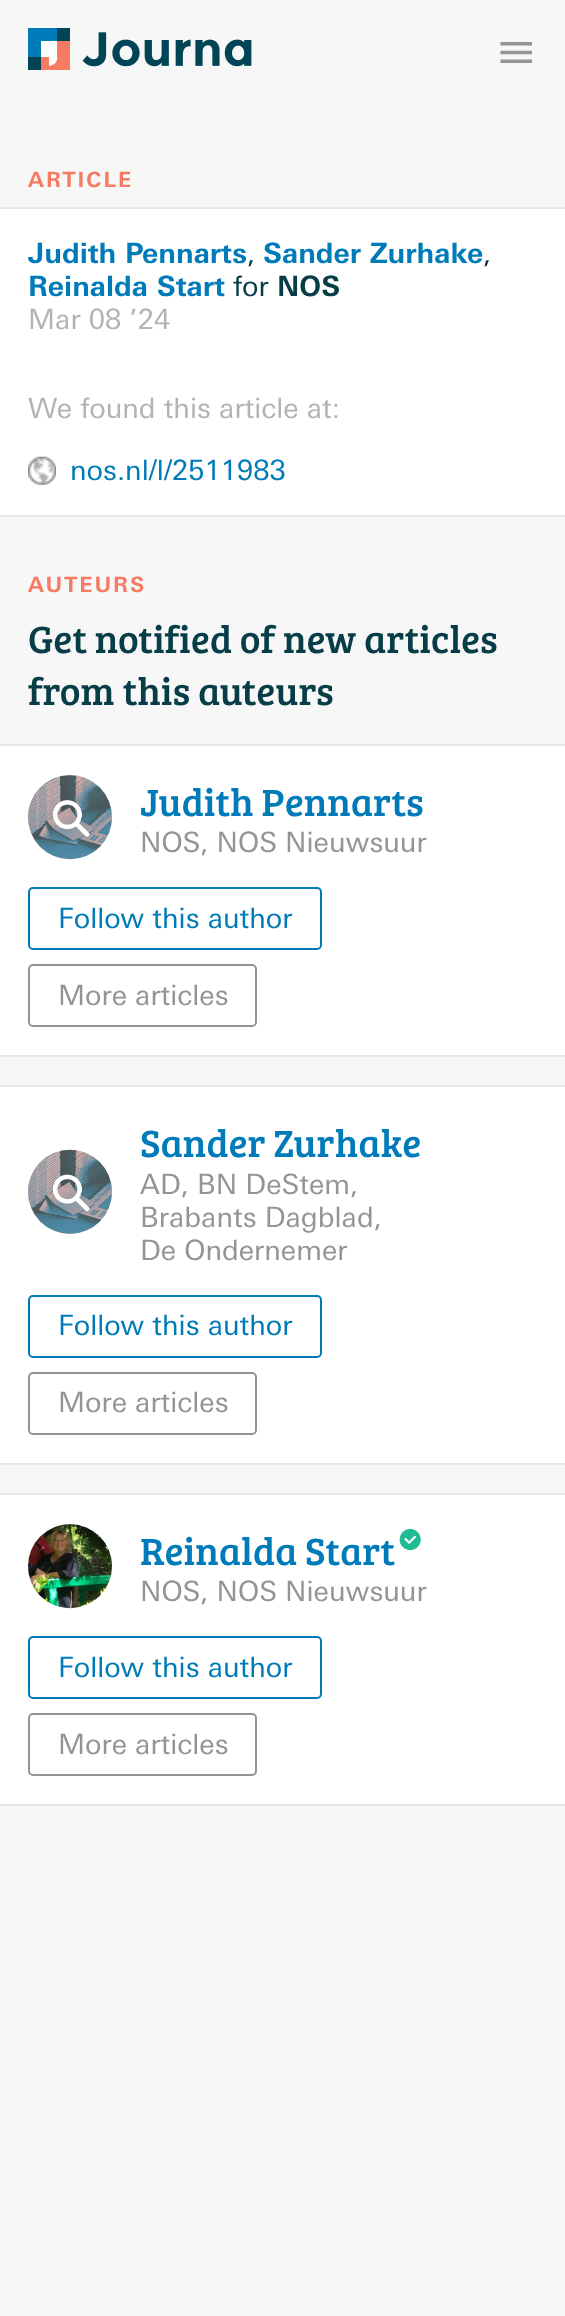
<svg xmlns="http://www.w3.org/2000/svg" width="565" height="2316">
<style>
.a{font:bold 21px 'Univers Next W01';letter-spacing:2px;fill:#f77a62}
.b{font:bold 28px 'Univers Next W01';fill:#007bb9}
.c{font:28px 'Univers Next W01';fill:#063d47}
.d{font:bold 28px 'Univers Next W01';fill:#063d47}
.e{font:28px 'Univers Next W01';fill:#b3b3b3}
.f{font:28px 'Univers Next W01';fill:#007bb9}
.g{font:39.25px Bree Serif;fill:#063d47}
.h{font:39.25px Bree Serif;fill:#007bb9}
.i{font:28px 'Univers Next W01';fill:#949494}
</style>
<rect width="100%" height="100%" fill="#f7f7f7"/>
<image href="1.png" x="28" y="28" width="224" height="42"/>
<image href="2.png" x="500" y="42" width="32" height="21"/>
<path fill="#fff" d="M0 209h565v306H0z"/>
<path fill="#e8e8e8" d="M0 207h565v2H0z"/>
<path fill="#e8e8e8" d="M0 515h565v2H0z"/>
<image href="3.png" x="28" y="456" width="28" height="29"/>
<path fill="#fff" d="M0 746h565v309H0z"/>
<path fill="#e8e8e8" d="M0 744h565v2H0z"/>
<path fill="#e8e8e8" d="M0 1055h565v2H0z"/>
<circle fill="#b3b3b3" cx="70" cy="817" r="42"/>
<image href="4.png" x="28" y="775" width="84" height="85"/>
<rect fill="none" stroke="#007bb9" stroke-width="2" x="29" y="888" width="292" height="61" rx="4"/>
<rect fill="none" stroke="#949494" stroke-width="2" x="29" y="965" width="227" height="61" rx="4"/>
<path fill="#fff" d="M0 1087h565v376H0z"/>
<path fill="#e8e8e8" d="M0 1085h565v2H0z"/>
<path fill="#e8e8e8" d="M0 1463h565v2H0z"/>
<circle fill="#b3b3b3" cx="70" cy="1192" r="42"/>
<image href="5.png" x="28" y="1149" width="84" height="85"/>
<rect fill="none" stroke="#007bb9" stroke-width="2" x="29" y="1296" width="292" height="61" rx="4"/>
<rect fill="none" stroke="#949494" stroke-width="2" x="29" y="1373" width="227" height="61" rx="4"/>
<path fill="#fff" d="M0 1495h565v309H0z"/>
<path fill="#e8e8e8" d="M0 1493h565v2H0z"/>
<path fill="#e8e8e8" d="M0 1804h565v2H0z"/>
<circle fill="#b3b3b3" cx="70" cy="1566" r="42"/>
<image href="6.png" x="27" y="1524" width="85" height="85"/>
<image href="7.png" x="399" y="1528" width="22" height="23"/>
<rect fill="none" stroke="#007bb9" stroke-width="2" x="29" y="1637" width="292" height="61" rx="4"/>
<rect fill="none" stroke="#949494" stroke-width="2" x="29" y="1714" width="227" height="61" rx="4"/>
<text class="a" x="28" y="187">ARTICLE</text>
<text class="b" x="28" y="263">Judith Pennarts</text>
<text class="c" x="247" y="263">,</text>
<text class="b" x="263" y="263">Sander Zurhake</text>
<text class="c" x="483" y="263">,</text>
<text class="b" x="28" y="296">Reinalda Start</text>
<text class="c" x="233" y="296">for</text>
<text class="d" x="277" y="296">NOS</text>
<text class="e" x="28" y="329">Mar 08 ’24</text>
<text class="e" x="28" y="418">We found this article at:</text>
<text class="f" x="70" y="480">nos.nl/l/2511983</text>
<text class="a" x="28" y="592">AUTEURS</text>
<text class="g" x="28" y="653">Get notified of new articles</text>
<text class="g" x="28" y="705">from this auteurs</text>
<text class="h" x="140" y="816">Judith Pennarts</text>
<text class="i" x="140" y="852">NOS, NOS Nieuwsuur</text>
<text class="f" x="58" y="928">Follow this author</text>
<text class="i" x="58" y="1005">More articles</text>
<text class="h" x="140" y="1157">Sander Zurhake</text>
<text class="i" x="140" y="1194">AD, BN DeStem,</text>
<text class="i" x="140" y="1227">Brabants Dagblad,</text>
<text class="i" x="140" y="1260">De Ondernemer</text>
<text class="f" x="58" y="1335">Follow this author</text>
<text class="i" x="58" y="1412">More articles</text>
<text class="h" x="140" y="1565">Reinalda Start</text>
<text class="i" x="140" y="1601">NOS, NOS Nieuwsuur</text>
<text class="f" x="58" y="1677">Follow this author</text>
<text class="i" x="58" y="1754">More articles</text>
</svg>
